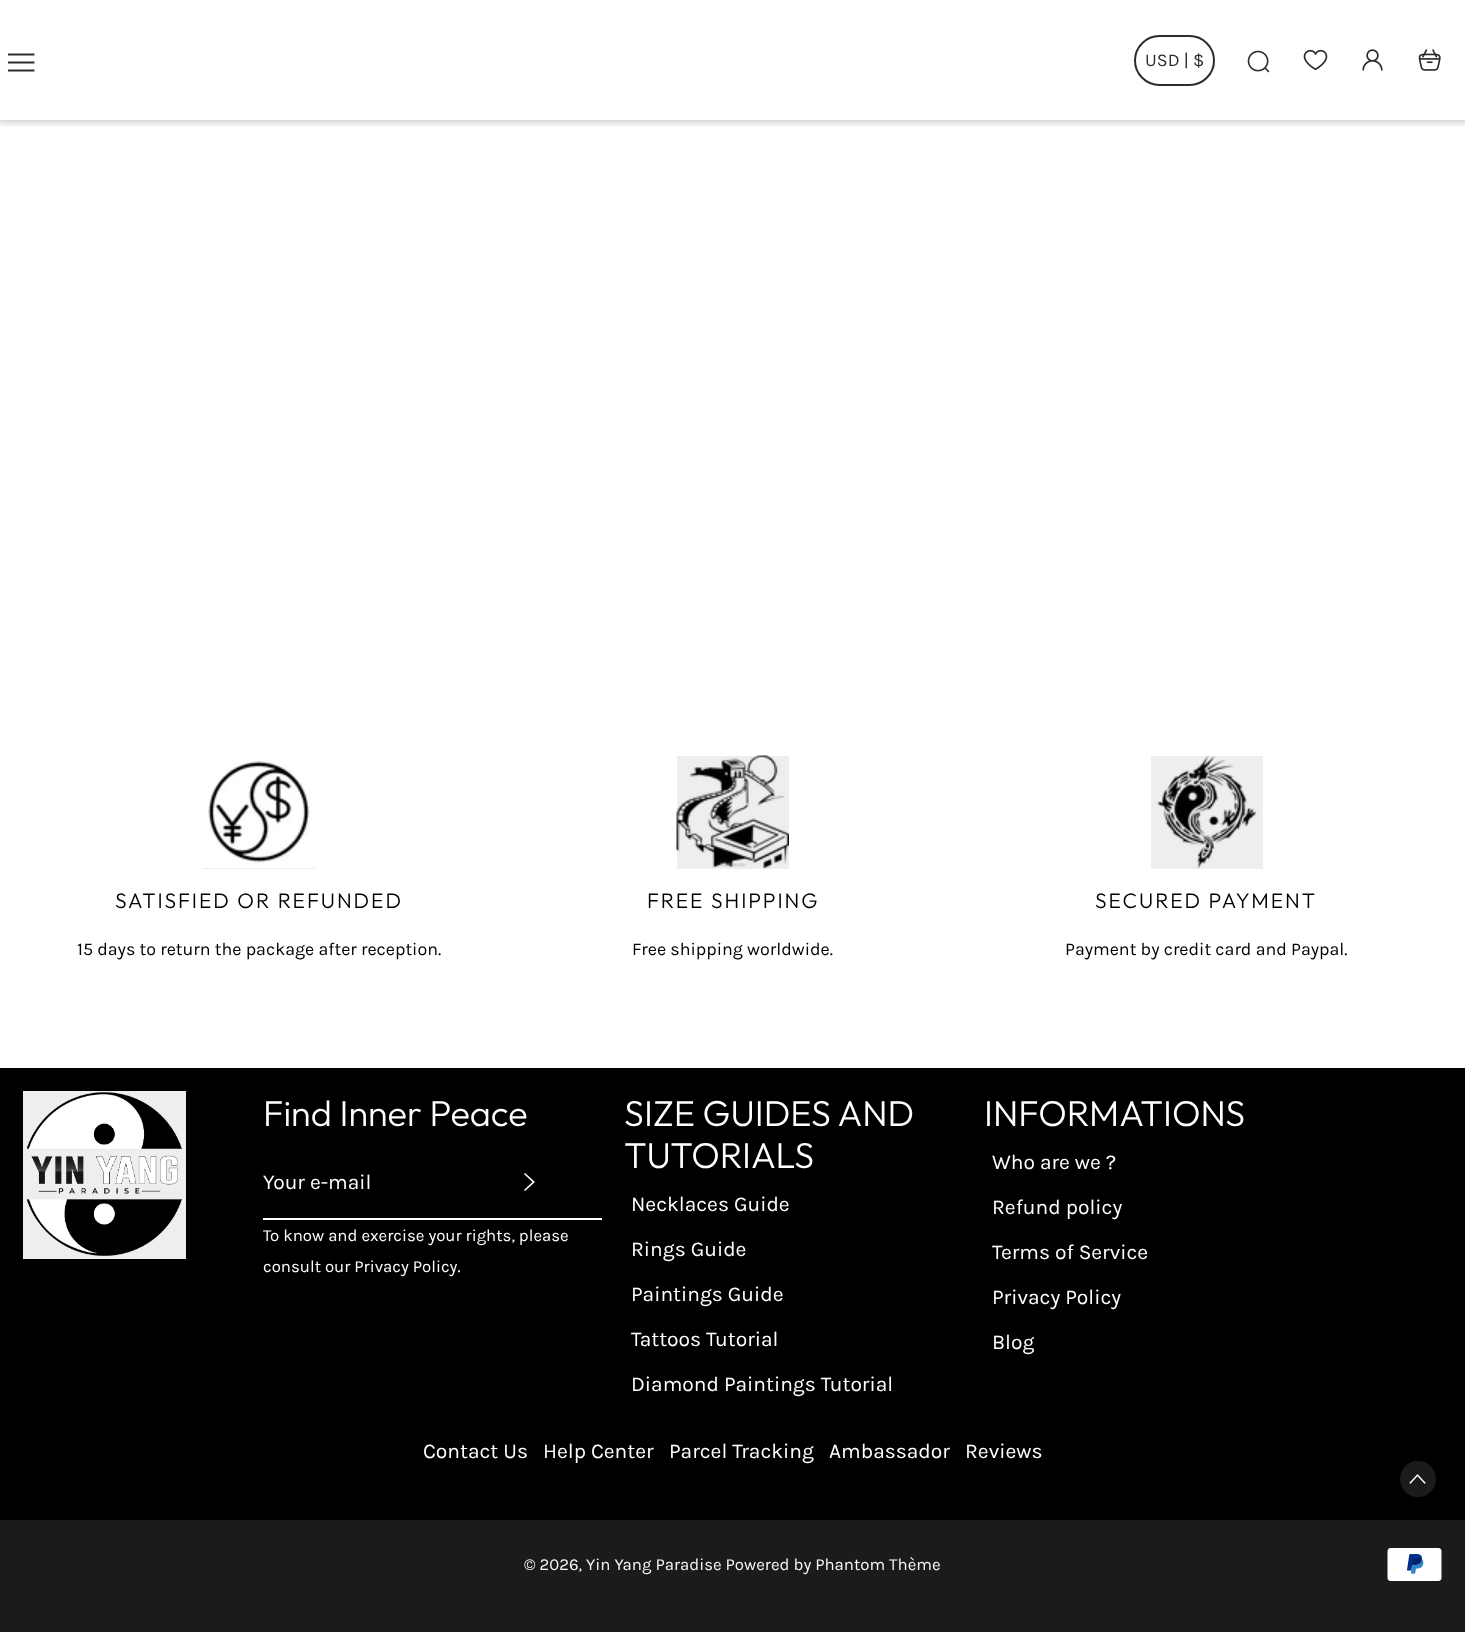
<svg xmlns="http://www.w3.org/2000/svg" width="1465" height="1632">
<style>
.a{font:18px Karla;fill:#2c2c2c}
.b{font:300 21px Outfit;letter-spacing:1.95px;fill:#000}
.c{font:17.85px Karla;fill:#000}
.d{font:300 36px Outfit;fill:#fff}
.e{font:21px Karla;fill:#fff}
.f{font:16.8px Karla;fill:#fff}
.g{font:16.8px Karla;fill:#f7f7f7}
</style>
<defs>
<clipPath id="clip1"><path d="M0 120h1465v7H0z"/></clipPath>
<clipPath id="clip2"><path d="M8 47h27v27H8z"/></clipPath>
<linearGradient id="g1" gradientUnits="userSpaceOnUse" x1="-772" y1="812" x2="1178" y2="812"><stop offset="0.02" stop-color="#eee"/><stop offset="0.18" stop-color="#ddd"/><stop offset="0.33" stop-color="#eee"/></linearGradient>
<linearGradient id="g2" gradientUnits="userSpaceOnUse" x1="-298" y1="812" x2="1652" y2="812"><stop offset="0.02" stop-color="#eee"/><stop offset="0.18" stop-color="#ddd"/><stop offset="0.33" stop-color="#eee"/></linearGradient>
<linearGradient id="g3" gradientUnits="userSpaceOnUse" x1="176" y1="812" x2="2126" y2="812"><stop offset="0.02" stop-color="#eee"/><stop offset="0.18" stop-color="#ddd"/><stop offset="0.33" stop-color="#eee"/></linearGradient>
<linearGradient id="g4" gradientUnits="userSpaceOnUse" x1="-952" y1="1175" x2="998" y2="1175"><stop offset="0.02" stop-color="#eee"/><stop offset="0.18" stop-color="#ddd"/><stop offset="0.33" stop-color="#eee"/></linearGradient>
</defs>
<rect width="100%" height="100%" fill="#fff"/>
<g clip-path="url(#clip1)">
<path fill="#1b1b1b33" filter="blur(3px)" d="M-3 -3h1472v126H-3z"/>
</g>
<g clip-path="url(#clip2)">
<path fill="none" stroke="#2c2c2c" stroke-width="1.8" d="M7.5 54.5h27m-27 8h27m-27 8h27"/>
</g>
<rect fill="none" stroke="#2c2c2c" stroke-width="2" x="1135" y="36" width="79" height="49" rx="24.5"/>
<image href="1.png" x="1247" y="50" width="23" height="23"/>
<image href="2.png" x="1303" y="49" width="25" height="22"/>
<image href="3.png" x="1362" y="49" width="21" height="22"/>
<image href="4.png" x="1418" y="49" width="23" height="22"/>
<path fill="url(#g1)" d="M203 868h112v1H203z"/>
<image href="5.png" x="203" y="756" width="112" height="112"/>
<path fill="url(#g2)" d="M677 756h112v113H677z"/>
<image href="6.png" x="676" y="755" width="113" height="113"/>
<path fill="url(#g3)" d="M1151 756h112v113H1151z"/>
<image href="7.png" x="1157" y="755" width="100" height="113"/>
<path fill="#000" d="M0 1068h1465v452H0z"/>
<path fill="url(#g4)" d="M23 1091h163v168H23z"/>
<image href="8.png" x="26" y="1092" width="156" height="164"/>
<path fill="#fff" d="M263 1218h339v2H263z"/>
<path fill="#fff" d="M524 1174l1-1l10 9l-10 9l-1-1l8.5-8z"/>
<path fill="#1b1b1b" d="M0 1520h1465v112H0z"/>
<image href="9.png" x="1387" y="1548" width="55" height="33"/>
<circle fill="#1b1b1b" cx="1418" cy="1479" r="18"/>
<image href="10.png" x="1409" y="1474" width="17" height="10"/>
<text class="a" x="1145" y="66">USD | $</text>
<text class="b" x="115" y="908">SATISFIED OR REFUNDED</text>
<text class="c" x="77" y="955">15 days to return the package after reception.</text>
<text class="b" x="647" y="908">FREE SHIPPING</text>
<text class="c" x="632" y="955">Free shipping worldwide.</text>
<text class="b" x="1095" y="908">SECURED PAYMENT</text>
<text class="c" x="1065" y="955">Payment by credit card and Paypal.</text>
<text class="d" x="263" y="1126">Find Inner Peace</text>
<text class="e" x="263" y="1189">Your e-mail</text>
<text class="f" x="263" y="1241">To know and exercise your rights, please</text>
<text class="f" x="263" y="1272">consult our Privacy Policy.</text>
<text class="d" x="624" y="1126">SIZE GUIDES AND</text>
<text class="d" x="624" y="1168">TUTORIALS</text>
<text class="e" x="631" y="1211">Necklaces Guide</text>
<text class="e" x="631" y="1256">Rings Guide</text>
<text class="e" x="631" y="1301">Paintings Guide</text>
<text class="e" x="631" y="1346">Tattoos Tutorial</text>
<text class="e" x="631" y="1391">Diamond Paintings Tutorial</text>
<text class="d" x="984" y="1126">INFORMATIONS</text>
<text class="e" x="992" y="1169">Who are we ?</text>
<text class="e" x="992" y="1214">Refund policy</text>
<text class="e" x="992" y="1259">Terms of Service</text>
<text class="e" x="992" y="1304">Privacy Policy</text>
<text class="e" x="992" y="1349">Blog</text>
<text class="e" x="423" y="1458">Contact Us</text>
<text class="e" x="543" y="1458">Help Center</text>
<text class="e" x="669" y="1458">Parcel Tracking</text>
<text class="e" x="829" y="1458">Ambassador</text>
<text class="e" x="965" y="1458">Reviews</text>
<text class="g" x="524" y="1570">© 2026, Yin Yang Paradise Powered by Phantom Thème</text>
</svg>
